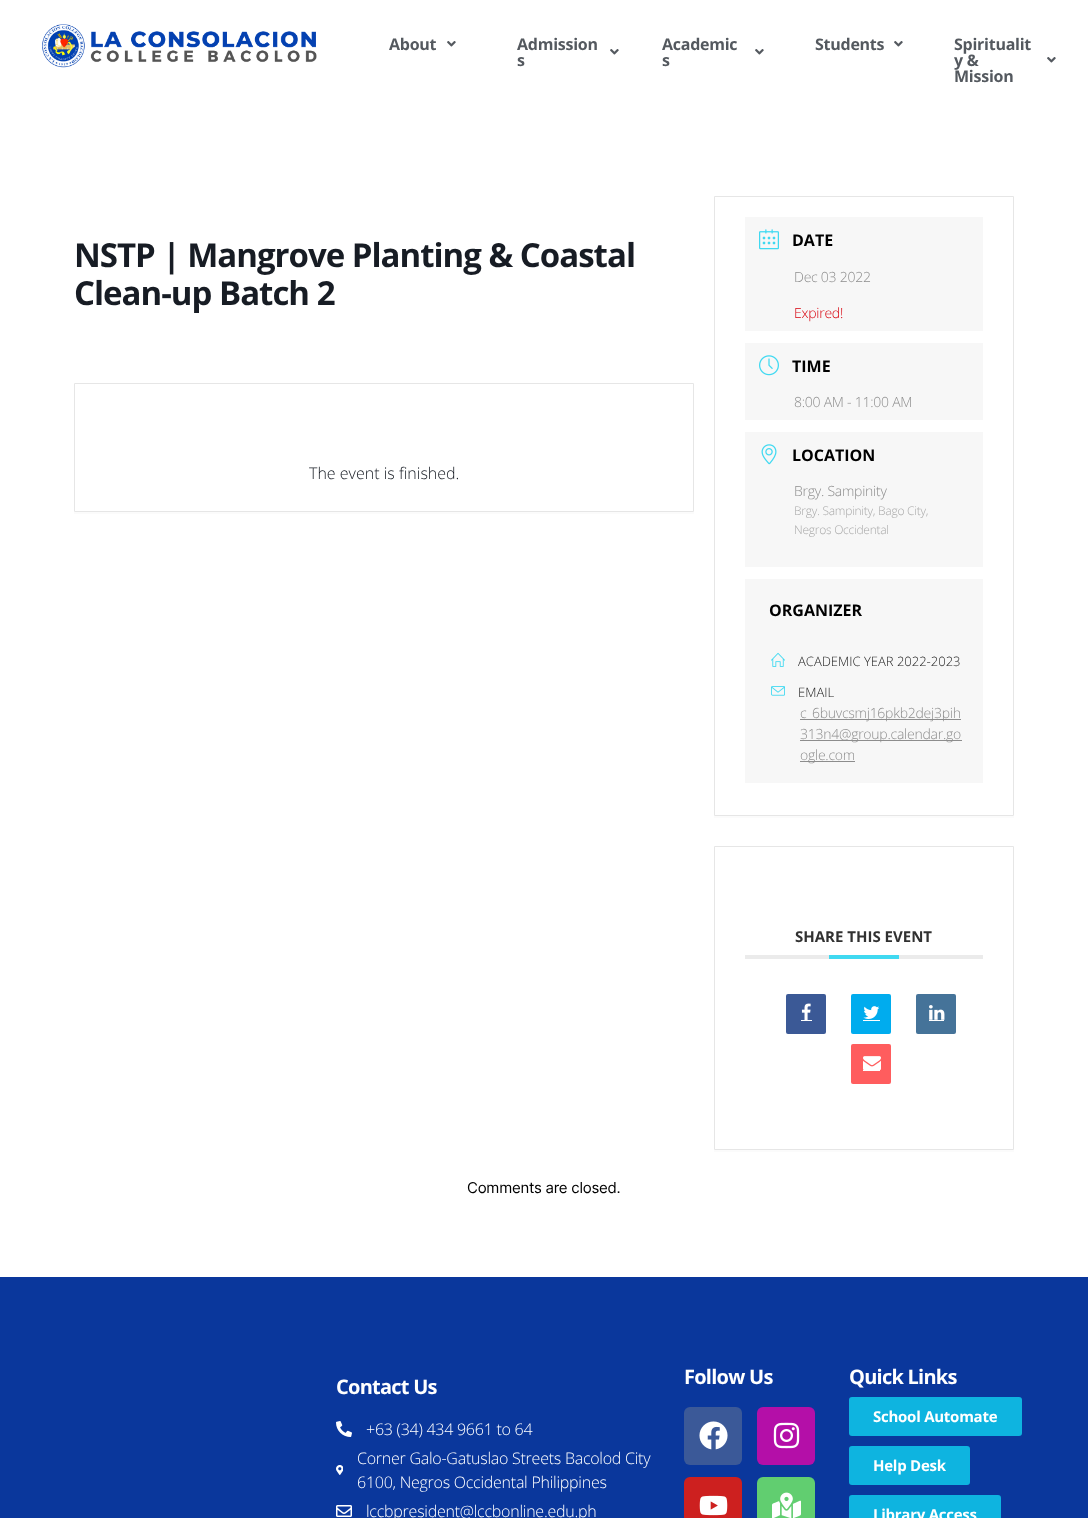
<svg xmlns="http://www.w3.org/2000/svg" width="1088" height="1518">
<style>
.a{font:bold 16px Open Sans;letter-spacing:-0.25px;fill:#54595f}
.b{font:bold 33px Open Sans;letter-spacing:-1px;fill:#171c24}
.c{font:300 16px Open Sans;fill:#171c24}
.d{font:bold 16px Open Sans;fill:#000}
.e{font:300 14px Open Sans;letter-spacing:-0.25px;fill:#8d8d8d}
.f{font:300 14px Open Sans;letter-spacing:-0.25px;fill:#d8000c}
.g{font:300 12px Open Sans;letter-spacing:-0.25px;fill:#a9a9a9}
.h{font:300 13px Open Sans;fill:#222}
.i{font:bold 15px Open Sans;fill:#313131}
.j{font:15px Inter;letter-spacing:-0.25px;fill:#000}
.k{font:bold 20px Open Sans;letter-spacing:-0.75px;fill:#fff}
.l{font:300 16px Open Sans;letter-spacing:-0.25px;fill:#fff}
.m{font:bold 15px Open Sans;letter-spacing:-0.25px;fill:#fff}
</style>
<rect width="100%" height="100%" fill="#fff"/>
<image href="1.png" x="42" y="24" width="275" height="44"/>
<image href="2.png" x="447" y="41" width="9" height="6"/>
<image href="2.png" x="610" y="49" width="9" height="6"/>
<image href="2.png" x="755" y="49" width="9" height="6"/>
<image href="2.png" x="894" y="41" width="9" height="6"/>
<image href="2.png" x="1047" y="57" width="9" height="6"/>
<path fill="#fbfbfb" d="M74 512h620v2H74z"/>
<path fill="none" stroke="#e6e6e6" d="M74.5 383.5h619v128H74.5z"/>
<path fill="#fbfbfb" d="M714 816h300v2H714z"/>
<path fill="none" stroke="#e6e6e6" d="M714.5 196.5h299v619H714.5z"/>
<path fill="#f7f7f7" d="M745 217h238v114H745z"/>
<image href="3.png" x="759" y="229" width="20" height="21"/>
<path fill="#f7f7f7" d="M745 343h238v77H745z"/>
<image href="4.png" x="759" y="355" width="20" height="21"/>
<path fill="#f7f7f7" d="M745 432h238v135H745z"/>
<image href="5.png" x="761" y="444" width="16" height="21"/>
<path fill="#f7f7f7" d="M745 579h238v204H745z"/>
<image href="6.png" x="771" y="652" width="14" height="15"/>
<image href="7.png" x="771" y="686" width="14" height="10"/>
<path fill="#8d8d8d" d="M800 719h161v1H800z"/>
<path fill="#8d8d8d" d="M800 740h162v1H800z"/>
<path fill="#8d8d8d" d="M800 761h55v1H800z"/>
<path fill="#fbfbfb" d="M714 1150h300v2H714z"/>
<path fill="none" stroke="#e6e6e6" d="M714.5 846.5h299v303H714.5z"/>
<path fill="#ebebeb" d="M745 955h238v4H745z"/>
<path fill="#40d9f1" d="M829 955h70v4H829z"/>
<rect fill="#3b5996" x="786" y="994" width="40" height="40" rx="2"/>
<image href="8.png" x="801" y="1003" width="10" height="17"/>
<path fill="#fff" d="M801 1020h11v1H801z"/>
<rect fill="#00acee" x="851" y="994" width="40" height="40" rx="2"/>
<image href="9.png" x="863" y="1006" width="17" height="13"/>
<path fill="#fff" d="M863 1020h17v1H863z"/>
<rect fill="#457399" x="916" y="994" width="40" height="40" rx="2"/>
<image href="10.png" x="929" y="1005" width="16" height="15"/>
<path fill="#fff" d="M929 1020h15v1H929z"/>
<rect fill="#ff5d5e" x="851" y="1044" width="40" height="40" rx="2"/>
<image href="11.png" x="863" y="1056" width="18" height="14"/>
<path fill="#fff" d="M863 1070h17v1H863z"/>
<path fill="#0a379c" d="M0 1277h1088v241H0z"/>
<image href="12.png" x="336" y="1421" width="16" height="16"/>
<image href="13.png" x="336" y="1465" width="7" height="10"/>
<image href="14.png" x="336" y="1505" width="16" height="12"/>
<rect fill="#3b5998" x="684" y="1407" width="58" height="58" rx="6"/>
<image href="15.png" x="699" y="1421" width="29" height="29"/>
<rect fill="#b40fa8" x="757" y="1407" width="58" height="58" rx="6"/>
<image href="16.png" x="773" y="1422" width="27" height="27"/>
<rect fill="#cd201f" x="684" y="1477" width="58" height="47" rx="6"/>
<image href="17.png" x="699" y="1495" width="29" height="21"/>
<rect fill="#61ce70" x="757" y="1477" width="58" height="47" rx="6"/>
<image href="18.png" x="772" y="1492" width="29" height="26"/>
<rect fill="#0eb4e0" x="849" y="1397" width="173" height="39" rx="3"/>
<rect fill="#0eb4e0" x="849" y="1446" width="121" height="39" rx="3"/>
<rect fill="#0eb4e0" x="849" y="1495" width="152" height="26" rx="3"/>
<text class="a" x="389" y="50">About</text>
<text class="a" x="517" y="50">Admission</text>
<text class="a" x="517" y="66">s</text>
<text class="a" x="662" y="50">Academic</text>
<text class="a" x="662" y="66">s</text>
<text class="a" x="815" y="50">Students</text>
<text class="a" x="954" y="50">Spiritualit</text>
<text class="a" x="954" y="66">y &amp;</text>
<text class="a" x="954" y="82">Mission</text>
<text class="b" x="74" y="267">NSTP | Mangrove Planting &amp; Coastal</text>
<text class="b" x="74" y="305">Clean-up Batch 2</text>
<text class="c" x="309" y="479">The event is finished.</text>
<text class="d" x="792" y="246">DATE</text>
<text class="e" x="794" y="282">Dec 03 2022</text>
<text class="f" x="794" y="318">Expired!</text>
<text class="d" x="792" y="372">TIME</text>
<text class="e" x="794" y="407">8:00 AM - 11:00 AM</text>
<text class="d" x="792" y="461">LOCATION</text>
<text class="e" x="794" y="496">Brgy. Sampinity</text>
<text class="g" x="794" y="515">Brgy. Sampinity, Bago City,</text>
<text class="g" x="794" y="534">Negros Occidental</text>
<text class="d" x="769" y="616">ORGANIZER</text>
<text class="h" x="798" y="666">ACADEMIC YEAR 2022-2023</text>
<text class="h" x="798" y="697">EMAIL</text>
<text class="e" x="800" y="718">c_6buvcsmj16pkb2dej3pih</text>
<text class="e" x="800" y="739">313n4@group.calendar.go</text>
<text class="e" x="800" y="760">ogle.com</text>
<text class="i" x="795" y="942">SHARE THIS EVENT</text>
<text class="j" x="467" y="1193">Comments are closed.</text>
<text class="k" x="336" y="1394">Contact Us</text>
<text class="l" x="366" y="1435">+63 (34) 434 9661 to 64</text>
<text class="l" x="357" y="1464">Corner Galo-Gatuslao Streets Bacolod City</text>
<text class="l" x="357" y="1488">6100, Negros Occidental Philippines</text>
<text class="l" x="366" y="1517">lccbpresident@lccbonline.edu.ph</text>
<text class="k" x="684" y="1384">Follow Us</text>
<text class="k" x="849" y="1384">Quick Links</text>
<text class="m" x="873" y="1422">School Automate</text>
<text class="m" x="873" y="1471">Help Desk</text>
<text class="m" x="873" y="1520">Library Access</text>
</svg>
